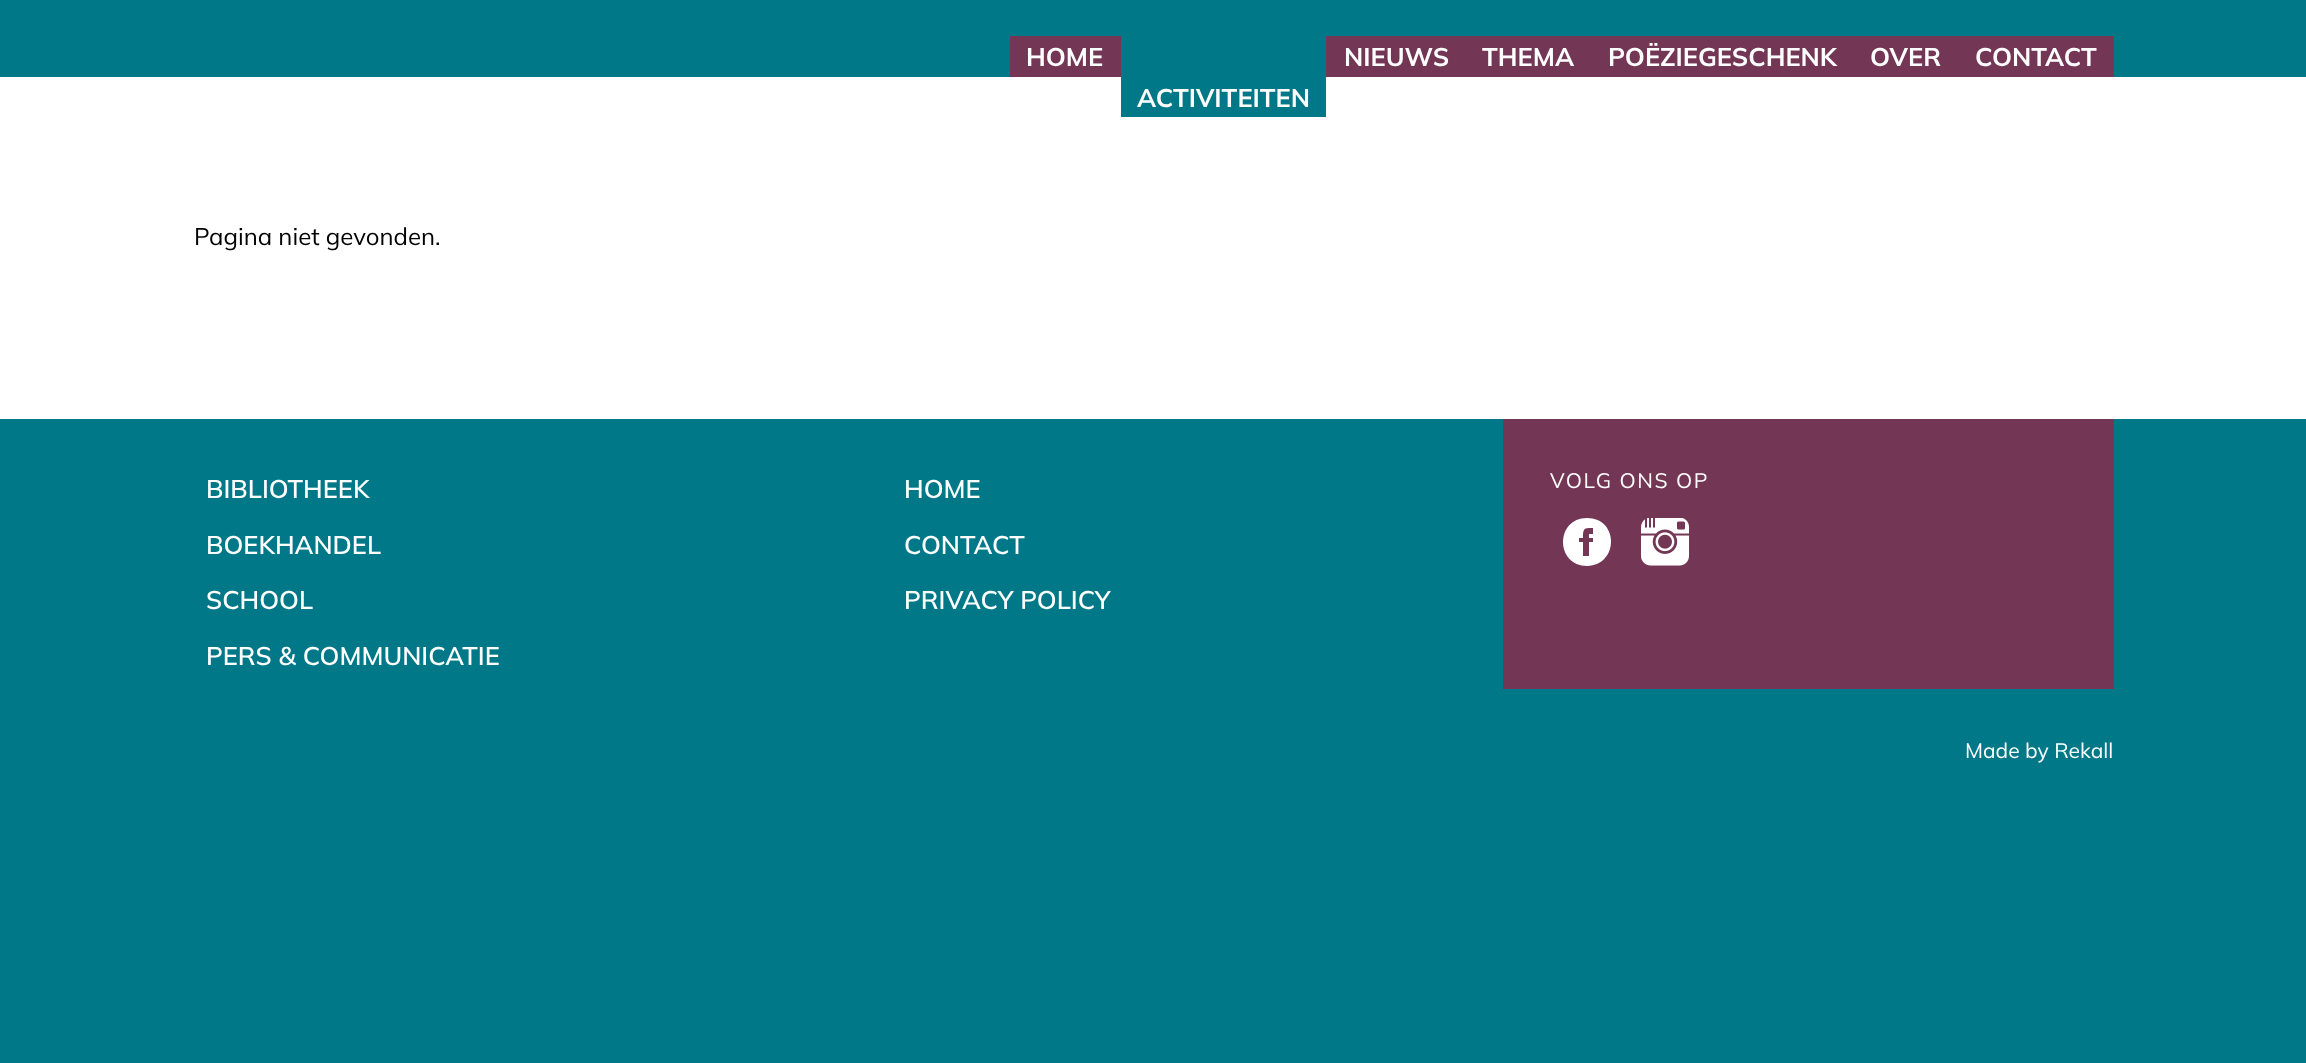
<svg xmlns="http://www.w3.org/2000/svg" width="2306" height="1063">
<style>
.a{font:bold 25.5px Mulish;fill:#fff}
.b{font:24px Mulish;fill:#000}
.c{font:600 25.5px Mulish;fill:#fff}
.d{font:21px Mulish;letter-spacing:1.5px;fill:#fff}
.e{font:21px Mulish;fill:#fff}
</style>
<rect width="100%" height="100%" fill="#007888"/>
<path fill="#733655" d="M1010 36h111v41H1010z"/>
<path fill="#733655" d="M1326 36h788v41H1326z"/>
<path fill="#fff" d="M0 77h2306v342H0z"/>
<path fill="#007888" d="M1121 77h205v40H1121z"/>
<path fill="#733655" d="M1503 419h611v270H1503z"/>
<path fill="#fff" d="M1587 518c-32 0-32 48 0 48c32-1 32-48 0-48zm6 16c-5 0-4-1-4 4h4v4h-4v14h-6v-14h-4v-4h4c0-10 1-10 10-10z"/>
<image href="1.png" x="1641" y="518" width="48" height="48"/>
<text class="a" x="1026" y="66">HOME</text>
<text class="a" x="1344" y="66">NIEUWS</text>
<text class="a" x="1482" y="66">THEMA</text>
<text class="a" x="1608" y="66">POËZIEGESCHENK</text>
<text class="a" x="1870" y="66">OVER</text>
<text class="a" x="1975" y="66">CONTACT</text>
<text class="a" x="1137" y="107">ACTIVITEITEN</text>
<text class="b" x="194" y="245">Pagina niet gevonden.</text>
<text class="c" x="206" y="498">BIBLIOTHEEK</text>
<text class="c" x="206" y="554">BOEKHANDEL</text>
<text class="c" x="206" y="609">SCHOOL</text>
<text class="c" x="206" y="665">PERS &amp; COMMUNICATIE</text>
<text class="c" x="904" y="498">HOME</text>
<text class="c" x="904" y="554">CONTACT</text>
<text class="c" x="904" y="609">PRIVACY POLICY</text>
<text class="d" x="1550" y="488">VOLG ONS OP</text>
<text class="e" x="1965" y="758">Made by Rekall</text>
</svg>
